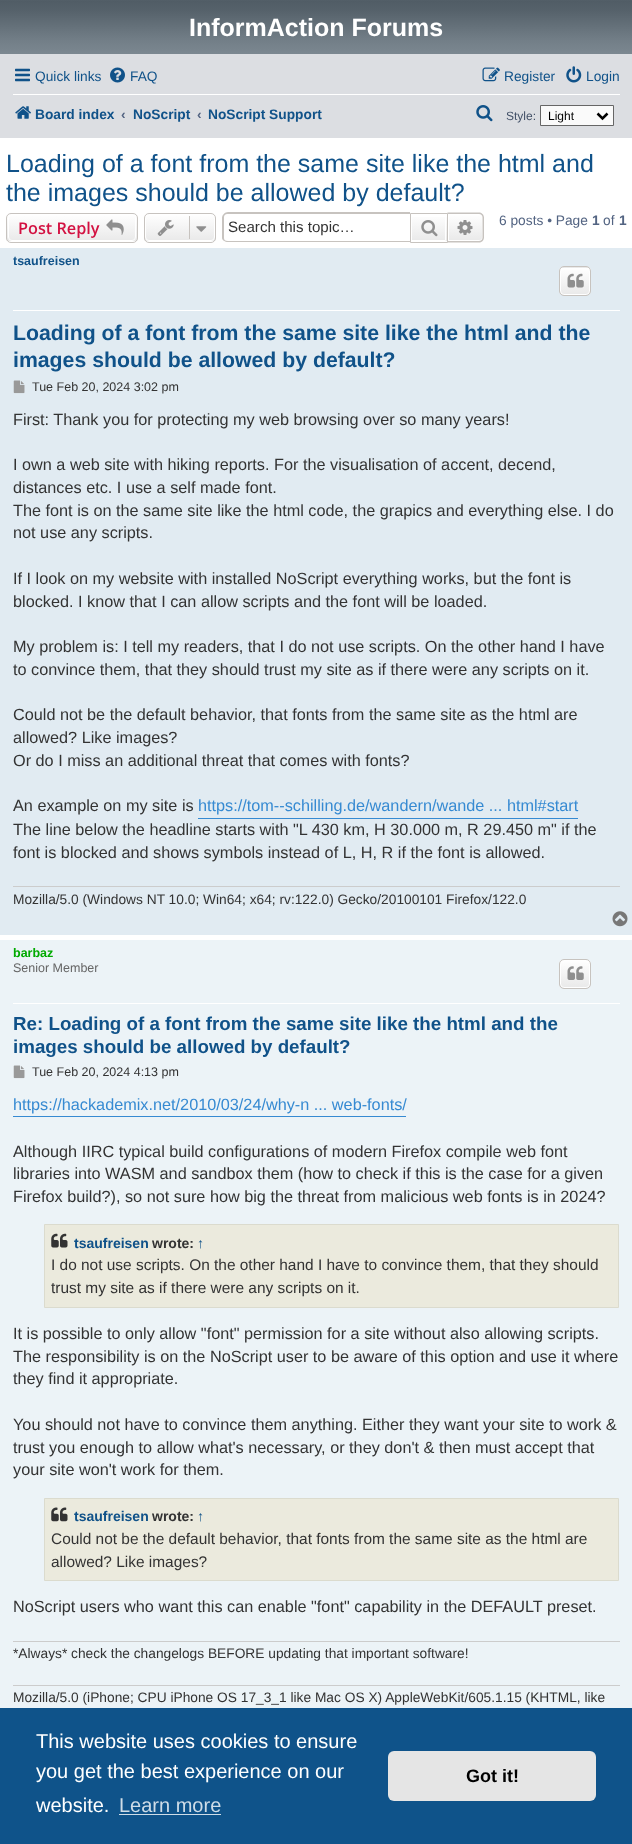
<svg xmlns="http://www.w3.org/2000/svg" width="632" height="1844">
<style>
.a{font:bold 25px Liberation Sans;fill:#fff}
.b{font:13.75px Liberation Sans;fill:#105289}
.c{font:bold 13.75px Liberation Sans;fill:#105289}
.d{font:bold 13.75px Liberation Sans;fill:#536482}
.e{font:12px Liberation Sans;fill:#425067}
.f{font:12px Liberation Sans;fill:#000}
.g{font:25px Liberation Sans;fill:#105289}
.h{font:600 16.25px Open Sans;fill:#d31141}
.i{font:15.1px Liberation Sans;fill:#333}
.j{font:13.75px Liberation Sans;fill:#536482}
.k{font:bold 12.5px Liberation Sans;fill:#105289}
.l{font:bold 21.25px Liberation Sans;fill:#105289}
.m{font:12.5px Liberation Sans;fill:#333}
.n{font:16.25px Liberation Sans;fill:#333}
.o{font:16.25px Liberation Sans;fill:#368ad2}
.p{font:13.75px Liberation Sans;fill:#333}
.q{font:bold 12.5px Liberation Sans;fill:#0a0}
.r{font:12.5px Liberation Sans;fill:#666}
.s{font:bold 18.75px Liberation Sans;fill:#105289}
.t{font:bold 14px Liberation Sans;fill:#105289}
.u{font:bold 14px Liberation Sans;fill:#333}
.v{font:15.45px Liberation Sans;fill:#333}
.w{font:20px Liberation Sans;fill:#fff}
.x{font:20px Liberation Sans;fill:#cfdde8}
.y{font:bold 18px Liberation Sans;fill:#000}
</style>
<defs>
<linearGradient id="g1" gradientUnits="userSpaceOnUse" x1="316" y1="0" x2="316" y2="55"><stop offset="0" stop-color="#6e777f"/><stop offset="0.01" stop-color="#505c65"/><stop offset="0.2" stop-color="#56626b"/><stop offset="0.75" stop-color="#737f88"/><stop offset="1" stop-color="#7c8891"/></linearGradient>
<clipPath id="clip1"><rect x="6" y="213" width="132" height="30" rx="5"/></clipPath>
<linearGradient id="g2" gradientUnits="userSpaceOnUse" x1="72" y1="214" x2="72" y2="241"><stop offset="0" stop-color="#fff"/><stop offset="1" stop-color="#e9e9e9"/></linearGradient>
<clipPath id="clip2"><rect x="144" y="213" width="72" height="30" rx="5"/></clipPath>
<linearGradient id="g3" gradientUnits="userSpaceOnUse" x1="180" y1="214" x2="180" y2="241"><stop offset="0" stop-color="#fff"/><stop offset="1" stop-color="#e9e9e9"/></linearGradient>
<linearGradient id="g4" gradientUnits="userSpaceOnUse" x1="429" y1="214" x2="429" y2="241"><stop offset="0" stop-color="#fff"/><stop offset="1" stop-color="#e9e9e9"/></linearGradient>
<linearGradient id="g5" gradientUnits="userSpaceOnUse" x1="465" y1="214" x2="465" y2="241"><stop offset="0" stop-color="#fff"/><stop offset="1" stop-color="#e9e9e9"/></linearGradient>
<clipPath id="clip3"><rect x="559" y="266" width="32" height="30" rx="5"/></clipPath>
<linearGradient id="g6" gradientUnits="userSpaceOnUse" x1="575" y1="240" x2="575" y2="268"><stop offset="0" stop-color="#fff"/><stop offset="1" stop-color="#e9e9e9"/></linearGradient>
<linearGradient id="g7" gradientUnits="userSpaceOnUse" x1="575" y1="268" x2="575" y2="295"><stop offset="0" stop-color="#fff"/><stop offset="1" stop-color="#e9e9e9"/></linearGradient>
<clipPath id="clip4"><rect x="559" y="959" width="32" height="30" rx="5"/></clipPath>
<linearGradient id="g8" gradientUnits="userSpaceOnUse" x1="575" y1="960" x2="575" y2="988"><stop offset="0" stop-color="#fff"/><stop offset="1" stop-color="#e9e9e9"/></linearGradient>
</defs>
<rect width="100%" height="100%" fill="#fff"/>
<path fill="url(#g1)" d="M0 0h632v54H0z"/>
<path fill="#dcdee2" d="M0 54h632v84H0z"/>
<image href="1.png" x="15" y="68" width="15" height="14"/>
<image href="2.png" x="110" y="67" width="15" height="16"/>
<image href="3.png" x="482" y="67" width="18" height="15"/>
<image href="4.png" x="566" y="66" width="16" height="17"/>
<path fill="#fff" d="M13 94h607v1H13z"/>
<image href="5.png" x="15" y="106" width="16" height="13"/>
<image href="6.png" x="476" y="105" width="17" height="17"/>
<path fill="#fafafa" stroke="#666" d="M540.5 105.5h73v20H540.5z"/>
<path fill="none" stroke="#000" stroke-width="2.5" d="M597.5 113.5l5 5l5-5"/>
<g clip-path="url(#clip1)">
<path fill="url(#g2)" d="M6 214h132v27H6z"/>
</g>
<rect fill="none" stroke="#fff" x="8.5" y="214.5" width="127" height="26" rx="3.5"/>
<rect fill="none" stroke="#c7c3bf" x="6.5" y="213.5" width="131" height="29" rx="4.5"/>
<image href="7.png" x="106" y="219" width="18" height="16"/>
<g clip-path="url(#clip2)">
<path fill="url(#g3)" d="M144 214h72v27H144z"/>
</g>
<rect fill="none" stroke="#fff" x="145.5" y="214.5" width="69" height="26" rx="3.5"/>
<rect fill="none" stroke="#c7c3bf" x="144.5" y="213.5" width="71" height="29" rx="4.5"/>
<image href="8.png" x="157" y="220" width="17" height="16"/>
<path fill="#c7c3bf" d="M189 216h1v23H189z"/>
<image href="9.png" x="196" y="226" width="11" height="6"/>
<path fill="#c7c3bf" fill-rule="evenodd" d="M228 212h182v30h-182c-3 0-6-2-6-4v-20c0-3 3-6 6-6zm0 2h182v27h-182c-3 0-4-1-4-3v-20c0-3 1-4 4-4z"/>
<path fill="url(#g4)" d="M412 217h35v24H412z"/>
<path fill="none" stroke="#fff" d="M411.5 214.5h34v26H411.5z"/>
<path fill="none" stroke="#c7c3bf" d="M410.5 213.5h37v29H410.5z"/>
<image href="10.png" x="421" y="220" width="17" height="17"/>
<path fill="url(#g5)" stroke="#fff" d="M448.5 214.5h30.5c2 0 3.5 1.5 3.5 3.5v19c0 2-1.5 3.5-3.5 3.5h-30.5z"/>
<path fill="#c7c3bf" fill-rule="evenodd" d="M447.5 212.5h31.5c2.5 0 5 2 5 5v20c0 3-2.5 5-5 5h-31.5zm0 1.5h31.5c2 0 3.5 1.5 3.5 3.5v20c0 2-1.5 3.5-3.5 3.5h-31.5z"/>
<image href="11.png" x="457" y="220" width="16" height="15"/>
<path fill="#e1ebf2" d="M0 248h632v687H0z"/>
<path fill="#fff" d="M13 310h607v1H13z"/>
<g clip-path="url(#clip3)">
<path fill="url(#g6)" d="M559 266h32v2H559z"/>
<path fill="url(#g7)" d="M559 268h32v27H559z"/>
</g>
<rect fill="none" stroke="#fff" x="560.5" y="268.5" width="29" height="26" rx="3.5"/>
<rect fill="none" stroke="#c7c3bf" x="559.5" y="266.5" width="31" height="29" rx="4.5"/>
<image href="12.png" x="567" y="273" width="17" height="15"/>
<image href="13.png" x="13" y="380" width="12" height="14"/>
<path fill="#368ad2" d="M198 818h380v1H198z"/>
<path fill="#ccc" d="M13 886h607v1H13z"/>
<image href="14.png" x="612" y="911" width="16" height="16"/>
<path fill="#ecf3f7" d="M0 940h632v768H0z"/>
<path fill="#fff" d="M13 1003h607v1H13z"/>
<g clip-path="url(#clip4)">
<path fill="url(#g8)" d="M559 960h32v28H559z"/>
</g>
<rect fill="none" stroke="#fff" x="560.5" y="960.5" width="29" height="27" rx="3.5"/>
<rect fill="none" stroke="#c7c3bf" x="559.5" y="959.5" width="31" height="29" rx="4.5"/>
<image href="15.png" x="567" y="966" width="17" height="14"/>
<image href="16.png" x="13" y="1065" width="12" height="14"/>
<path fill="#368ad2" d="M13 1116h393v1H13z"/>
<path fill="#ebeadd" stroke="#dbdbce" d="M44.5 1224.5h574v83H44.5z"/>
<image href="17.png" x="51" y="1233" width="17" height="15"/>
<path fill="#ebeadd" stroke="#dbdbce" d="M44.5 1498.5h574v82H44.5z"/>
<image href="18.png" x="51" y="1507" width="17" height="15"/>
<path fill="#ccc" d="M13 1641h607v1H13z"/>
<path fill="#ccc" d="M13 1685h607v1H13z"/>
<path fill="#0f538a" d="M0 1708h632v136H0z"/>
<path fill="#cfdde8" d="M119 1814h102v1H119z"/>
<rect fill="#e5e5e5" x="388" y="1751" width="208" height="50" rx="6"/>
<text class="a" x="189" y="36">InformAction Forums</text>
<text class="b" x="35" y="81">Quick links</text>
<text class="b" x="130" y="81">FAQ</text>
<text class="b" x="504" y="81">Register</text>
<text class="b" x="586" y="81">Login</text>
<text class="c" x="35" y="119">Board index</text>
<text class="d" x="121" y="119">‹</text>
<text class="c" x="133" y="119">NoScript</text>
<text class="d" x="197" y="119">‹</text>
<text class="c" x="208" y="119">NoScript Support</text>
<text class="e" x="506" y="120">Style:</text>
<text class="f" x="548" y="120">Light</text>
<text class="g" x="6" y="172">Loading of a font from the same site like the html and</text>
<text class="g" x="6" y="201">the images should be allowed by default?</text>
<text class="h" x="18" y="234">Post Reply</text>
<text class="i" x="228" y="232">Search this topic…</text>
<text class="j" x="499" y="225">6 posts • Page</text>
<text class="d" x="592" y="225">1</text>
<text class="j" x="603" y="225">of</text>
<text class="d" x="619" y="225">1</text>
<text class="k" x="13" y="265">tsaufreisen</text>
<text class="l" x="13" y="340">Loading of a font from the same site like the html and the</text>
<text class="l" x="13" y="367">images should be allowed by default?</text>
<text class="m" x="32" y="391">Tue Feb 20, 2024 3:02 pm</text>
<text class="n" x="13" y="425">First: Thank you for protecting my web browsing over so many years!</text>
<text class="n" x="13" y="470">I own a web site with hiking reports. For the visualisation of accent, decend,</text>
<text class="n" x="13" y="493">distances etc. I use a self made font.</text>
<text class="n" x="13" y="516">The font is on the same site like the html code, the grapics and everything else. I do</text>
<text class="n" x="13" y="538">not use any scripts.</text>
<text class="n" x="13" y="584">If I look on my website with installed NoScript everything works, but the font is</text>
<text class="n" x="13" y="607">blocked. I know that I can allow scripts and the font will be loaded.</text>
<text class="n" x="13" y="652">My problem is: I tell my readers, that I do not use scripts. On the other hand I have</text>
<text class="n" x="13" y="675">to convince them, that they should trust my site as if there were any scripts on it.</text>
<text class="n" x="13" y="720">Could not be the default behavior, that fonts from the same site as the html are</text>
<text class="n" x="13" y="743">allowed? Like images?</text>
<text class="n" x="13" y="766">Or do I miss an additional threat that comes with fonts?</text>
<text class="n" x="13" y="811">An example on my site is</text>
<text class="o" x="198" y="811">https://tom--schilling.de/wandern/wande ... html#start</text>
<text class="n" x="13" y="835">The line below the headline starts with "L 430 km, H 30.000 m, R 29.450 m" if the</text>
<text class="n" x="13" y="858">font is blocked and shows symbols instead of L, H, R if the font is allowed.</text>
<text class="p" x="13" y="904">Mozilla/5.0 (Windows NT 10.0; Win64; x64; rv:122.0) Gecko/20100101 Firefox/122.0</text>
<text class="q" x="13" y="957">barbaz</text>
<text class="r" x="13" y="972">Senior Member</text>
<text class="s" x="13" y="1030">Re: Loading of a font from the same site like the html and the</text>
<text class="s" x="13" y="1053">images should be allowed by default?</text>
<text class="m" x="32" y="1076">Tue Feb 20, 2024 4:13 pm</text>
<text class="o" x="13" y="1110">https://hackademix.net/2010/03/24/why-n ... web-fonts/</text>
<text class="n" x="13" y="1157">Although IIRC typical build configurations of modern Firefox compile web font</text>
<text class="n" x="13" y="1179">libraries into WASM and sandbox them (how to check if this is the case for a given</text>
<text class="n" x="13" y="1202">Firefox build?), so not sure how big the threat from malicious web fonts is in 2024?</text>
<text class="t" x="74" y="1248">tsaufreisen</text>
<text class="u" x="152" y="1248">wrote:</text>
<text class="t" x="197" y="1248">↑</text>
<text class="v" x="51" y="1270">I do not use scripts. On the other hand I have to convince them, that they should</text>
<text class="v" x="51" y="1293">trust my site as if there were any scripts on it.</text>
<text class="n" x="13" y="1339">It is possible to only allow "font" permission for a site without also allowing scripts.</text>
<text class="n" x="13" y="1362">The responsibility is on the NoScript user to be aware of this option and use it where</text>
<text class="n" x="13" y="1384">they find it appropriate.</text>
<text class="n" x="13" y="1430">You should not have to convince them anything. Either they want your site to work &amp;</text>
<text class="n" x="13" y="1453">trust you enough to allow what's necessary, or they don't &amp; then must accept that</text>
<text class="n" x="13" y="1475">your site won't work for them.</text>
<text class="t" x="74" y="1521">tsaufreisen</text>
<text class="u" x="152" y="1521">wrote:</text>
<text class="t" x="197" y="1521">↑</text>
<text class="v" x="51" y="1544">Could not be the default behavior, that fonts from the same site as the html are</text>
<text class="v" x="51" y="1567">allowed? Like images?</text>
<text class="n" x="13" y="1612">NoScript users who want this can enable "font" capability in the DEFAULT preset.</text>
<text class="p" x="13" y="1658">*Always* check the changelogs BEFORE updating that important software!</text>
<text class="p" x="13" y="1702">Mozilla/5.0 (iPhone; CPU iPhone OS 17_3_1 like Mac OS X) AppleWebKit/605.1.15 (KHTML, like</text>
<text class="w" x="36" y="1748">This website uses cookies to ensure</text>
<text class="w" x="36" y="1778">you get the best experience on our</text>
<text class="w" x="36" y="1812">website.</text>
<text class="x" x="119" y="1812">Learn more</text>
<text class="y" x="466" y="1782">Got it!</text>
</svg>
